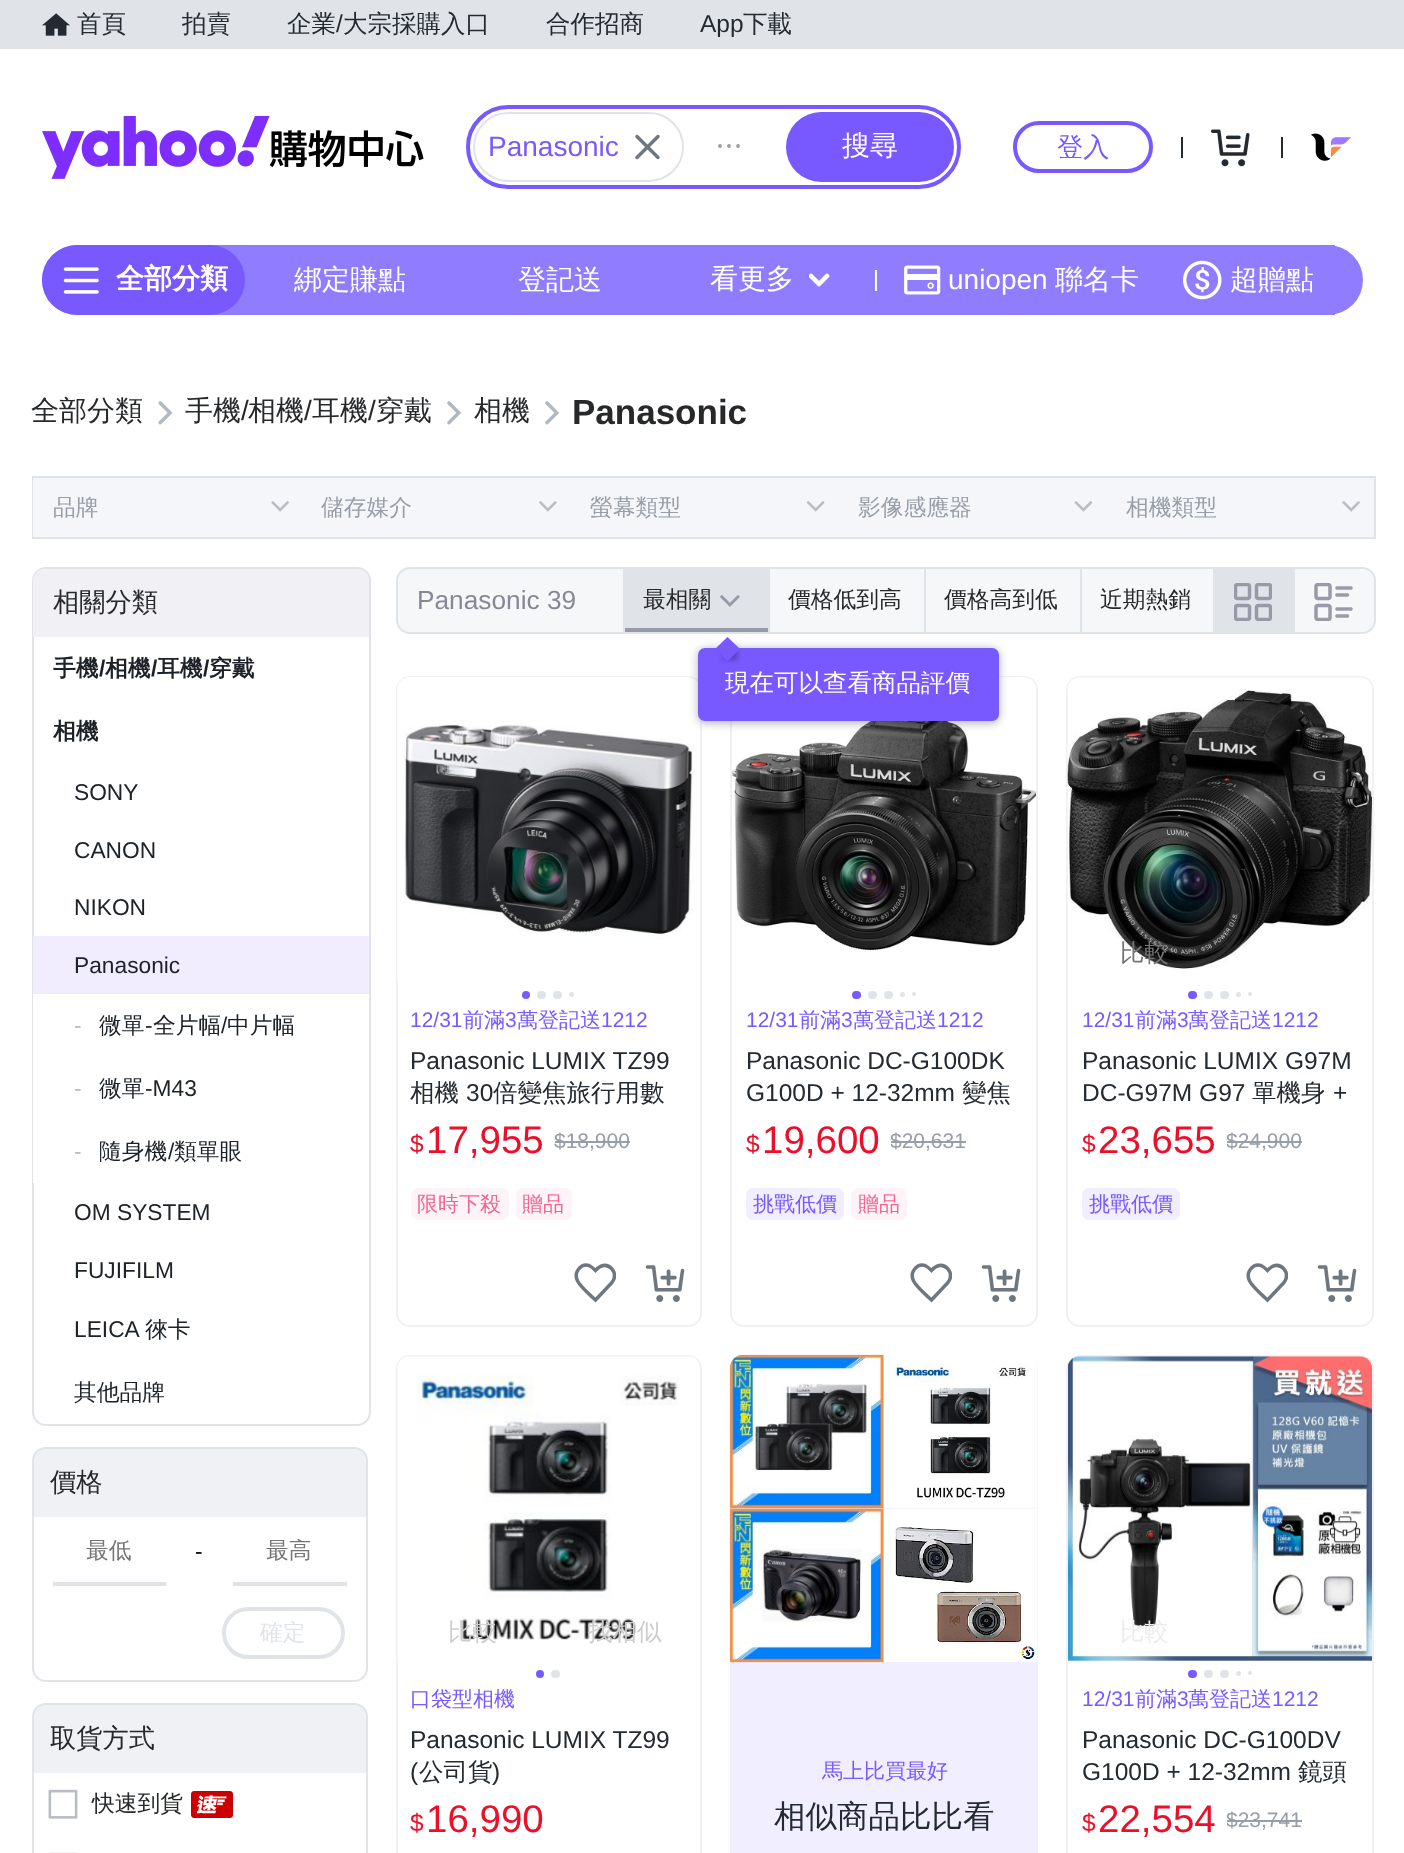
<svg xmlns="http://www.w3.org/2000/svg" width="1404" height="1853">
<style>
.a{font:500 24.5px WenQuanYi Zen Hei;fill:#232a31}
.b{font:24.5px Liberation Sans;fill:#232a31}
.c{font:28px Liberation Sans;fill:#7759ff}
.d{font:500 28px WenQuanYi Zen Hei;fill:#979ea8}
.e{font:500 28px WenQuanYi Zen Hei;fill:#fff}
.f{font:500 26.25px WenQuanYi Zen Hei;fill:#7759ff}
.g{font:bold 28px WenQuanYi Zen Hei;fill:#fff}
.h{font:28px Liberation Sans;fill:#fff}
.i{font:500 28px WenQuanYi Zen Hei;fill:#26282a}
.j{font:28px Liberation Sans;fill:#26282a}
.k{font:bold 35px Liberation Sans;fill:#26282a}
.l{font:500 22.75px WenQuanYi Zen Hei;fill:#979ea8}
.m{font:500 26.25px WenQuanYi Zen Hei;fill:#26282a}
.n{font:bold 22.75px WenQuanYi Zen Hei;fill:#1d2228}
.o{font:bold 22.75px Liberation Sans;fill:#1d2228}
.p{font:22.75px Liberation Sans;fill:#1d2228}
.q{font:22.75px Liberation Sans;fill:#b9bdc5}
.r{font:500 22.75px WenQuanYi Zen Hei;fill:#1d2228}
.s{font:500 22.75px WenQuanYi Zen Hei;fill:#757575}
.t{font:22.75px Liberation Sans;fill:#000}
.u{font:500 22.75px WenQuanYi Zen Hei;fill:#e0e4e9}
.v{font:500 22.75px WenQuanYi Zen Hei;fill:#26282a}
.w{font:26.25px Liberation Sans;fill:#858996}
.x{font:500 24.5px WenQuanYi Zen Hei;fill:#fff}
.y{font:21px Liberation Sans;fill:#7759ff}
.z{font:500 21px WenQuanYi Zen Hei;fill:#7759ff}
.a1{font:24.5px Liberation Sans;fill:#eb0f29}
.b1{font:38.5px Liberation Sans;fill:#eb0f29}
.c1{font:21px Liberation Sans;fill:#979ea8}
.d1{font:500 21px WenQuanYi Zen Hei;fill:#f26591}
.e1{font:500 24.5px WenQuanYi Zen Hei;fill:#757575}
.f1{font:500 24.5px WenQuanYi Zen Hei;fill:#cdcdcd}
.g1{font:500 31.5px WenQuanYi Zen Hei;fill:#232a31}
.h1{font:500 24.5px WenQuanYi Zen Hei;fill:#ececec}
</style>
<defs>
<clipPath id="clip1"><path d="M574 1262h42v42H574z"/></clipPath>
<clipPath id="clip2"><path d="M910 1262h42v42H910z"/></clipPath>
<clipPath id="clip3"><path d="M1246 1262h42v42H1246z"/></clipPath>
<clipPath id="clip4"><path d="M411 1010h275v21H411z"/></clipPath>
<clipPath id="clip5"><path d="M746 1010h276v21H746z"/></clipPath>
<clipPath id="clip6"><path d="M891 1127h75v28H891z"/></clipPath>
<clipPath id="clip7"><path d="M1082 1010h276v21H1082z"/></clipPath>
<clipPath id="clip8"><path d="M1227 1127h75v28H1227z"/></clipPath>
<clipPath id="clip9"><path d="M411 1689h275v21H411z"/></clipPath>
<clipPath id="clip10"><path d="M1082 1689h276v21H1082z"/></clipPath>
<clipPath id="clip11"><path d="M1227 1806h75v28H1227z"/></clipPath>
</defs>
<rect width="100%" height="100%" fill="#fff"/>
<path fill="#e0e4e9" d="M0 0h1404v49H0z"/>
<image href="1.png" x="42" y="13" width="28" height="23"/>
<image href="2.png" x="42" y="116" width="382" height="63"/>
<rect fill="none" stroke="#7759ff" stroke-width="4" x="468" y="107" width="491" height="80" rx="40"/>
<rect fill="none" stroke="#e0e4e9" stroke-width="2" x="474" y="113" width="209" height="68" rx="34"/>
<image href="3.png" x="635" y="134" width="25" height="26"/>
<rect fill="#7759ff" x="786" y="112" width="168" height="70" rx="35"/>
<rect fill="none" stroke="#7759ff" stroke-width="4" x="1015" y="123" width="136" height="48" rx="24"/>
<path fill="#232a31" d="M1181 137h2v21H1181z"/>
<image href="4.png" x="1211" y="129" width="39" height="38"/>
<path fill="#232a31" d="M1281 137h2v21H1281z"/>
<image href="5.png" x="1311" y="133" width="40" height="28"/>
<rect fill="#907cff" x="42" y="245" width="1321" height="70" rx="35"/>
<rect fill="#7759ff" x="42" y="245" width="203" height="70" rx="35"/>
<image href="6.png" x="63" y="267" width="36" height="27"/>
<image href="7.png" x="809" y="273" width="21" height="14"/>
<path fill="#fff" d="M875 270h2v21H875z"/>
<image href="8.png" x="904" y="265" width="37" height="30"/>
<path fill="#907cff" d="M1328 245h7v70H1328z"/>
<image href="9.png" x="1183" y="260" width="39" height="40"/>
<image href="10.png" x="158" y="401" width="15" height="24"/>
<image href="11.png" x="447" y="401" width="15" height="24"/>
<image href="11.png" x="545" y="401" width="15" height="24"/>
<path fill="none" stroke="#e0e4e9" stroke-width="2" d="M33 477h1342v61H33z"/>
<path fill="#f4f6f9" d="M33 478h1341v59H33z"/>
<image href="12.png" x="271" y="501" width="18" height="11"/>
<image href="13.png" x="539" y="501" width="18" height="11"/>
<image href="14.png" x="807" y="501" width="18" height="11"/>
<image href="15.png" x="1074" y="501" width="19" height="11"/>
<image href="12.png" x="1342" y="501" width="18" height="11"/>
<rect fill="none" stroke="#e0e4e9" stroke-width="2" x="33" y="568" width="337" height="857" rx="13"/>
<path fill="#f1f1f5" d="M45 569h312c6.5 0 12 5.5 12 12v56h-336v-56c0-6.5 5.5-12 12-12z"/>
<path fill="#f1edff" d="M33 936h336v58H33z"/>
<path fill="#fff" d="M33 994h1v189H33z"/>
<rect fill="none" stroke="#e0e4e9" stroke-width="2" x="33" y="1448" width="334" height="233" rx="13"/>
<path fill="#e0e4e980" d="M45 1449h309c6.5 0 12 5.5 12 12v56h-333v-56c0-6.5 5.5-12 12-12z"/>
<path fill="#e0e4e9" d="M53 1582h113v4H53z"/>
<path fill="#e0e4e9" d="M233 1582h114v4H233z"/>
<rect fill="none" stroke="#e0e4e9" stroke-width="4" x="224" y="1609" width="119" height="48" rx="24"/>
<rect fill="none" stroke="#e0e4e9" stroke-width="2" x="33" y="1704" width="334" height="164" rx="13"/>
<path fill="#e0e4e980" d="M45 1705h309c6.5 0 12 5.5 12 12v56h-333v-56c0-6.5 5.5-12 12-12z"/>
<image href="16.png" x="48" y="1789" width="30" height="30"/>
<image href="17.png" x="191" y="1791" width="42" height="27"/>
<image href="18.png" x="49" y="1852" width="28" height="1"/>
<rect fill="#f6f7f8" stroke="#e0e4e9" stroke-width="2" x="397" y="568" width="978" height="65" rx="13"/>
<path fill="#e0e4e9" d="M625 569h143v59H625z"/>
<path fill="#979ba7" d="M623 628h145v4H623z"/>
<path fill="#e0e4e9" d="M623 569h2v63H623z"/>
<image href="19.png" x="720" y="595" width="20" height="12"/>
<path fill="#e0e4e9" d="M768 569h2v63H768z"/>
<path fill="#e0e4e9" d="M924 569h2v63H924z"/>
<path fill="#e0e4e9" d="M1080 569h2v63H1080z"/>
<path fill="#e0e4e9" d="M1213 569h82v63H1213z"/>
<image href="20.png" x="1234" y="583" width="38" height="38"/>
<image href="21.png" x="1314" y="583" width="39" height="38"/>
<rect fill="none" stroke="#f1f1f5" stroke-width="2" x="397" y="677" width="304" height="649" rx="13"/>
<image href="22.png" x="397" y="677" width="303" height="305"/>
<rect fill="none" stroke="#f1f1f5" stroke-width="2" x="731" y="677" width="306" height="649" rx="13"/>
<image href="24.png" x="732" y="677" width="304" height="274"/>
<rect fill="#0000144d" filter="blur(5px)" x="698" y="649" width="301" height="74" rx="7"/>
<rect fill="#7759ff" x="698" y="648" width="301" height="73" rx="7"/>
<path fill="#0000144d" filter="blur(2.5px)" d="M723 646h14v14H723z"/>
<path fill="#7759ff" d="M727.5 661.5l-12.5-12.5l12.5-12l12.5 12z"/>
<circle fill="#7759ff" cx="526" cy="995" r="4"/>
<rect fill="#e0e4e9" x="537" y="991" width="9" height="8" rx="4"/>
<rect fill="#e0e4e9" x="553" y="991" width="9" height="8" rx="4"/>
<circle fill="#e0e4e9" cx="571.5" cy="994.5" r="2.5"/>
<path fill="#979ea8" d="M555 1141h75v2H555z"/>
<rect fill="#fef4f7" stroke="#fef4f7" stroke-width="2" x="412" y="1189" width="96" height="30" rx="6"/>
<rect fill="#fef4f7" stroke="#fef4f7" stroke-width="2" x="517" y="1189" width="54" height="30" rx="6"/>
<g clip-path="url(#clip1)">
<path fill="none" stroke="#6e7780" stroke-width="3.5" d="M611.5 1268.5c-5-5.5-12-3-16 2c-2-2-4-4-6.5-5c-8-2.5-15 6.5-12 14c1.5 5 14 16.5 18.5 20.5l16-17c4-4 4-10.5 0-14.5"/>
</g>
<image href="23.png" x="645" y="1265" width="40" height="37"/>
<rect fill="#7759ff" x="852" y="991" width="9" height="8" rx="4"/>
<rect fill="#e0e4e9" x="868" y="991" width="9" height="8" rx="4"/>
<rect fill="#e0e4e9" x="884" y="991" width="9" height="8" rx="4"/>
<circle fill="#e0e4e9" cx="902.5" cy="994.5" r="2.5"/>
<circle fill="#e0e4e9" cx="914" cy="994" r="2"/>
<path fill="#979ea8" d="M891 1141h75v2H891z"/>
<rect fill="#f1eeff" stroke="#f1eeff" stroke-width="2" x="747" y="1189" width="96" height="30" rx="6"/>
<rect fill="#fef4f7" stroke="#fef4f7" stroke-width="2" x="852" y="1189" width="54" height="30" rx="6"/>
<g clip-path="url(#clip2)">
<path fill="none" stroke="#6e7780" stroke-width="3.5" d="M947.5 1268.5c-5-5.5-12-3-16 2c-2-2-4-4-6.5-5c-8-2.5-15 6.5-12 14c1.5 5 14 16.5 18.5 20.5l16-17c4-4 4-10.5 0-14.5"/>
</g>
<image href="23.png" x="981" y="1265" width="40" height="37"/>
<rect fill="none" stroke="#f1f1f5" stroke-width="2" x="1067" y="677" width="306" height="649" rx="13"/>
<image href="25.png" x="1067" y="677" width="305" height="292"/>
<rect fill="#7759ff" x="1188" y="991" width="9" height="8" rx="4"/>
<rect fill="#e0e4e9" x="1204" y="991" width="9" height="8" rx="4"/>
<rect fill="#e0e4e9" x="1220" y="991" width="9" height="8" rx="4"/>
<circle fill="#e0e4e9" cx="1238.5" cy="994.5" r="2.5"/>
<circle fill="#e0e4e9" cx="1250" cy="994" r="2"/>
<path fill="#979ea8" d="M1227 1141h75v2H1227z"/>
<rect fill="#f1eeff" stroke="#f1eeff" stroke-width="2" x="1083" y="1189" width="96" height="30" rx="6"/>
<g clip-path="url(#clip3)">
<path fill="none" stroke="#6e7780" stroke-width="3.5" d="M1283.5 1268.5c-5-5.5-12-3-16 2c-2-2-4-4-6.5-5c-8-2.5-15 6.5-12 14c1.5 5 14 16.5 18.5 20.5l16-17c4-4 4-10.5 0-14.5"/>
</g>
<image href="23.png" x="1317" y="1265" width="40" height="37"/>
<rect fill="none" stroke="#f1f1f5" stroke-width="2" x="397" y="1356" width="304" height="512" rx="13"/>
<image href="26.png" x="397" y="1356" width="302" height="305"/>
<circle fill="#7759ff" cx="540" cy="1674" r="4"/>
<rect fill="#e0e4e9" x="551" y="1670" width="9" height="8" rx="4"/>
<rect fill="#f1eeff" x="730" y="1355" width="308" height="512" rx="14"/>
<image href="27.png" x="730" y="1354" width="154" height="155"/>
<image href="28.png" x="883" y="1355" width="155" height="154"/>
<image href="29.png" x="730" y="1508" width="154" height="155"/>
<image href="30.png" x="883" y="1509" width="155" height="153"/>
<rect fill="none" stroke="#f1f1f5" stroke-width="2" x="1067" y="1356" width="306" height="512" rx="13"/>
<image href="31.png" x="1068" y="1356" width="304" height="305"/>
<rect fill="#7759ff" x="1188" y="1670" width="9" height="8" rx="4"/>
<rect fill="#e0e4e9" x="1204" y="1670" width="9" height="8" rx="4"/>
<rect fill="#e0e4e9" x="1220" y="1670" width="9" height="8" rx="4"/>
<circle fill="#e0e4e9" cx="1238.5" cy="1673.5" r="2.5"/>
<circle fill="#e0e4e9" cx="1250" cy="1673" r="2"/>
<path fill="#979ea8" d="M1227 1820h75v2H1227z"/>
<text class="a" x="77" y="32">首頁</text>
<text class="a" x="182" y="32">拍賣</text>
<text class="a" x="287" y="32">企業</text>
<text class="b" x="336" y="32">/</text>
<text class="a" x="343" y="32">大宗採購入口</text>
<text class="a" x="546" y="32">合作招商</text>
<text class="b" x="700" y="32">App</text>
<text class="a" x="743" y="32">下載</text>
<text class="c" x="488" y="156">Panasonic</text>
<text class="d" x="715" y="156">…</text>
<text class="e" x="842" y="155">搜尋</text>
<text class="f" x="1057" y="156">登入</text>
<text class="g" x="116" y="288">全部分類</text>
<text class="e" x="294" y="289">綁定賺點</text>
<text class="e" x="518" y="289">登記送</text>
<text class="e" x="710" y="288">看更多</text>
<text class="h" x="948" y="289">uniopen</text>
<text class="e" x="1055" y="289">聯名卡</text>
<text class="e" x="1230" y="289">超贈點</text>
<text class="i" x="31" y="420">全部分類</text>
<text class="i" x="185" y="420">手機</text>
<text class="j" x="241" y="420">/</text>
<text class="i" x="248" y="420">相機</text>
<text class="j" x="304" y="420">/</text>
<text class="i" x="312" y="420">耳機</text>
<text class="j" x="368" y="420">/</text>
<text class="i" x="376" y="420">穿戴</text>
<text class="i" x="474" y="420">相機</text>
<text class="k" x="572" y="424">Panasonic</text>
<text class="l" x="53" y="515">品牌</text>
<text class="l" x="321" y="515">儲存媒介</text>
<text class="l" x="590" y="515">螢幕類型</text>
<text class="l" x="858" y="515">影像感應器</text>
<text class="l" x="1126" y="515">相機類型</text>
<text class="m" x="53" y="611">相關分類</text>
<text class="n" x="53" y="676">手機</text>
<text class="o" x="99" y="676">/</text>
<text class="n" x="105" y="676">相機</text>
<text class="o" x="151" y="676">/</text>
<text class="n" x="157" y="676">耳機</text>
<text class="o" x="203" y="676">/</text>
<text class="n" x="209" y="676">穿戴</text>
<text class="n" x="53" y="739">相機</text>
<text class="p" x="74" y="800">SONY</text>
<text class="p" x="74" y="858">CANON</text>
<text class="p" x="74" y="915">NIKON</text>
<text class="p" x="74" y="973">Panasonic</text>
<text class="q" x="74" y="1033">-</text>
<text class="r" x="99" y="1033">微單</text>
<text class="p" x="145" y="1033">-</text>
<text class="r" x="153" y="1033">全片幅</text>
<text class="p" x="221" y="1033">/</text>
<text class="r" x="227" y="1033">中片幅</text>
<text class="q" x="74" y="1096">-</text>
<text class="r" x="99" y="1096">微單</text>
<text class="p" x="145" y="1096">-M43</text>
<text class="q" x="74" y="1159">-</text>
<text class="r" x="99" y="1159">隨身機</text>
<text class="p" x="168" y="1159">/</text>
<text class="r" x="174" y="1159">類單眼</text>
<text class="p" x="74" y="1220">OM SYSTEM</text>
<text class="p" x="74" y="1278">FUJIFILM</text>
<text class="p" x="74" y="1337">LEICA</text>
<text class="r" x="145" y="1337">徠卡</text>
<text class="r" x="74" y="1400">其他品牌</text>
<text class="m" x="50" y="1491">價格</text>
<text class="s" x="86" y="1558">最低</text>
<text class="t" x="195" y="1559">-</text>
<text class="s" x="266" y="1558">最高</text>
<text class="u" x="260" y="1640">確定</text>
<text class="m" x="50" y="1747">取貨方式</text>
<text class="v" x="92" y="1811">快速到貨</text>
<text class="w" x="417" y="609">Panasonic 39</text>
<text class="v" x="643" y="607">最相關</text>
<text class="v" x="788" y="607">價格低到高</text>
<text class="v" x="944" y="607">價格高到低</text>
<text class="v" x="1100" y="607">近期熱銷</text>
<text class="x" x="725" y="691">現在可以查看商品評價</text>
<text class="y" x="410" y="1027">12/31</text>
<g clip-path="url(#clip4)">
<text class="z" x="463" y="1027">前滿</text>
</g>
<text class="y" x="505" y="1027">3</text>
<g clip-path="url(#clip4)">
<text class="z" x="517" y="1027">萬登記送</text>
</g>
<text class="y" x="601" y="1027">1212</text>
<text class="b" x="410" y="1069">Panasonic LUMIX TZ99</text>
<text class="a" x="410" y="1101">相機</text>
<text class="b" x="466" y="1101">30</text>
<text class="a" x="493" y="1101">倍變焦旅行用數</text>
<text class="a1" x="410" y="1152">$</text>
<text class="b1" x="426" y="1153">17,955</text>
<text class="c1" x="554" y="1148">$18,900</text>
<text class="d1" x="417" y="1211">限時下殺</text>
<text class="d1" x="522" y="1211">贈品</text>
<text class="y" x="746" y="1027">12/31</text>
<g clip-path="url(#clip5)">
<text class="z" x="799" y="1027">前滿</text>
</g>
<text class="y" x="841" y="1027">3</text>
<g clip-path="url(#clip5)">
<text class="z" x="853" y="1027">萬登記送</text>
</g>
<text class="y" x="937" y="1027">1212</text>
<text class="b" x="746" y="1069">Panasonic DC-G100DK</text>
<text class="b" x="746" y="1101">G100D + 12-32mm</text>
<text class="a" x="962" y="1101">變焦</text>
<text class="a1" x="746" y="1152">$</text>
<text class="b1" x="762" y="1153">19,600</text>
<g clip-path="url(#clip6)">
<text class="c1" x="890" y="1148">$20,631</text>
</g>
<text class="z" x="753" y="1211">挑戰低價</text>
<text class="d1" x="858" y="1211">贈品</text>
<text class="e1" x="1120" y="961">比較</text>
<text class="y" x="1082" y="1027">12/31</text>
<g clip-path="url(#clip7)">
<text class="z" x="1135" y="1027">前滿</text>
</g>
<text class="y" x="1177" y="1027">3</text>
<g clip-path="url(#clip7)">
<text class="z" x="1188" y="1027">萬登記送</text>
</g>
<text class="y" x="1272" y="1027">1212</text>
<text class="b" x="1082" y="1069">Panasonic LUMIX G97M</text>
<text class="b" x="1082" y="1101">DC-G97M G97</text>
<text class="a" x="1252" y="1101">單機身</text>
<text class="b" x="1333" y="1101">+</text>
<text class="a1" x="1082" y="1152">$</text>
<text class="b1" x="1098" y="1153">23,655</text>
<g clip-path="url(#clip8)">
<text class="c1" x="1226" y="1148">$24,900</text>
</g>
<text class="z" x="1089" y="1211">挑戰低價</text>
<text class="f1" x="448" y="1640">比較</text>
<text class="f1" x="588" y="1640">找相似</text>
<g clip-path="url(#clip9)">
<text class="z" x="410" y="1706">口袋型相機</text>
</g>
<text class="b" x="410" y="1748">Panasonic LUMIX TZ99</text>
<text class="b" x="410" y="1780">(</text>
<text class="a" x="419" y="1780">公司貨</text>
<text class="b" x="492" y="1780">)</text>
<text class="a1" x="410" y="1831">$</text>
<text class="b1" x="426" y="1832">16,990</text>
<text class="z" x="822" y="1778">馬上比買最好</text>
<text class="g1" x="774" y="1827">相似商品比比看</text>
<text class="h1" x="1120" y="1640">比較</text>
<text class="y" x="1082" y="1706">12/31</text>
<g clip-path="url(#clip10)">
<text class="z" x="1135" y="1706">前滿</text>
</g>
<text class="y" x="1177" y="1706">3</text>
<g clip-path="url(#clip10)">
<text class="z" x="1188" y="1706">萬登記送</text>
</g>
<text class="y" x="1272" y="1706">1212</text>
<text class="b" x="1082" y="1748">Panasonic DC-G100DV</text>
<text class="b" x="1082" y="1780">G100D + 12-32mm</text>
<text class="a" x="1298" y="1780">鏡頭</text>
<text class="a1" x="1082" y="1831">$</text>
<text class="b1" x="1098" y="1832">22,554</text>
<g clip-path="url(#clip11)">
<text class="c1" x="1226" y="1827">$23,741</text>
</g>
</svg>
